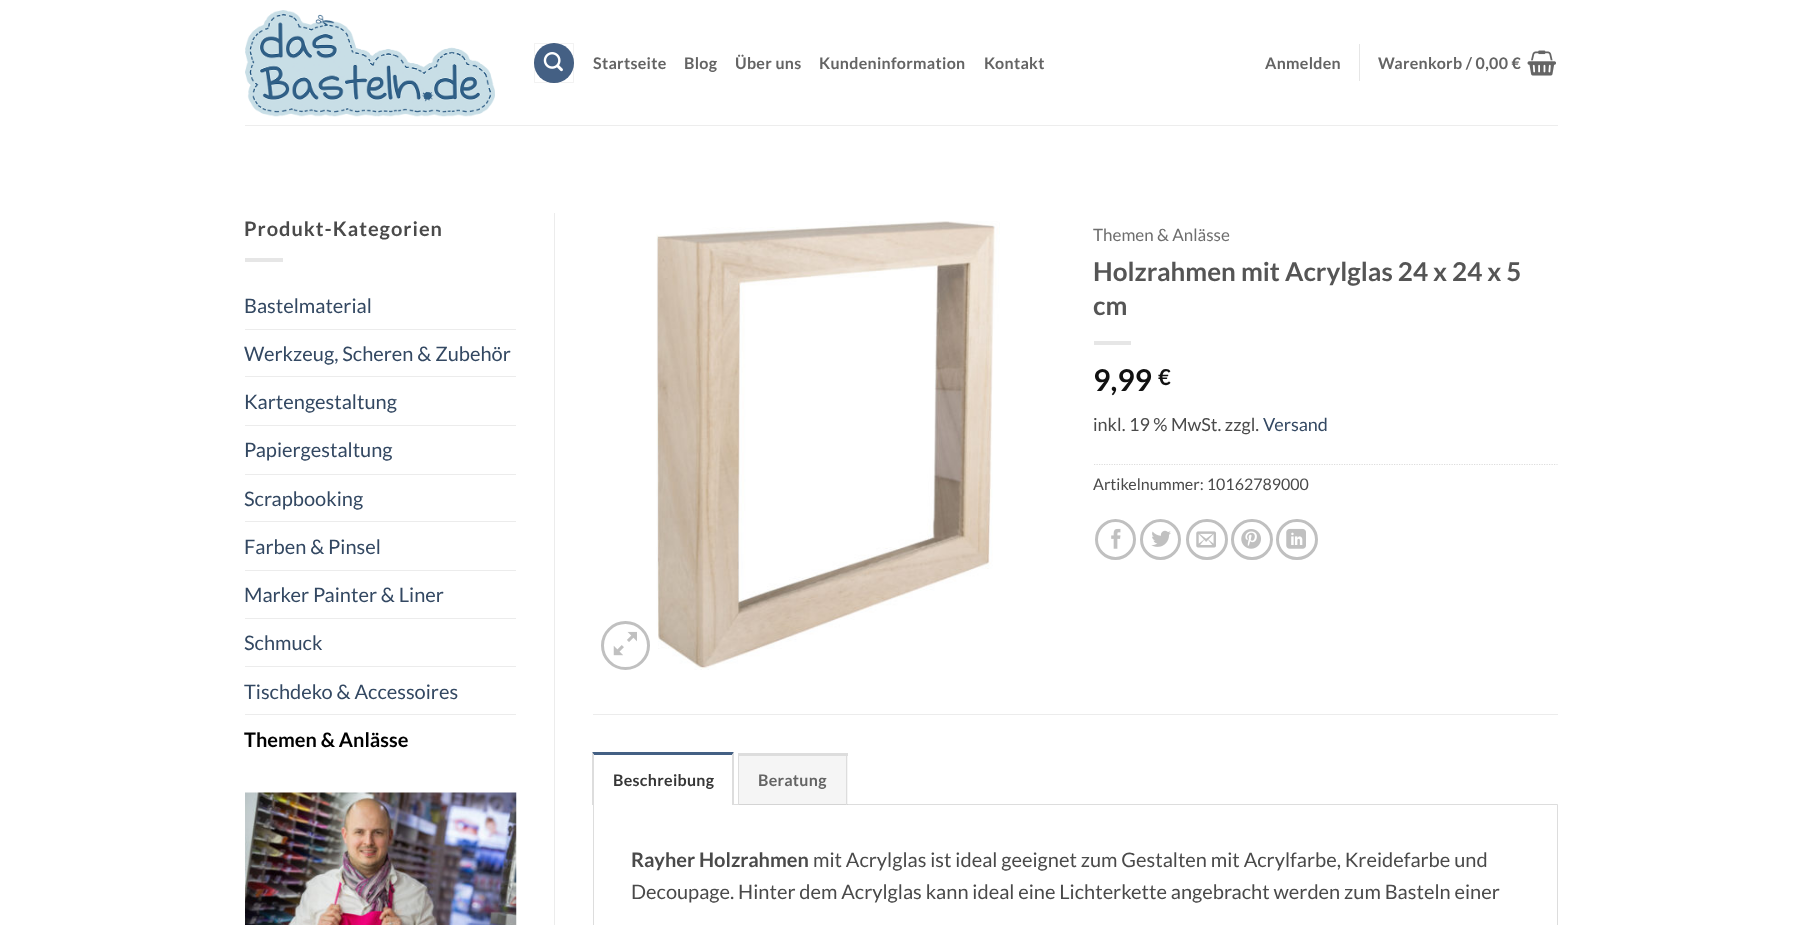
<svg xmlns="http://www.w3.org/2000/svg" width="1801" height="925">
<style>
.a{font:bold 16px Lato;letter-spacing:0.3px;fill:#646464}
.b{font:bold 20px Lato;letter-spacing:1px;fill:#4a4a4a}
.c{font:20px Lato;fill:#334862}
.d{font:bold 20px Lato;fill:#000}
.e{font:17px Lato;fill:#6e6e6e}
.f{font:bold 26px Lato;fill:#555}
.g{font:bold 30px Lato;fill:#111}
.h{font:bold 22px Lato;fill:#111}
.i{font:18px Lato;fill:#4a4a4a}
.j{font:18px Lato;fill:#334862}
.k{font:16px Lato;fill:#4a4a4a}
.l{font:bold 16px Lato;letter-spacing:0.3px;fill:#363636}
.m{font:bold 20px Lato;fill:#4a4a4a}
.n{font:20px Lato;fill:#4a4a4a}
</style>
<rect width="100%" height="100%" fill="#fff"/>
<image href="1.png" x="245" y="10" width="250" height="107"/>
<circle fill="#446084" cx="554" cy="63" r="20"/>
<path fill="none" stroke="#0000000d" d="M534.5 43.5h39v39H534.5z"/>
<image href="2.png" x="543" y="52" width="20" height="20"/>
<path fill="#e6e6e6" d="M1359 44h1v37H1359z"/>
<image href="3.png" x="1527" y="50" width="29" height="26"/>
<path fill="#ededed" d="M245 125h1313v1H245z"/>
<path fill="#e6e6e6" d="M245 258h38v4H245z"/>
<path fill="#ececec" d="M245 329h271v1H245z"/>
<path fill="#ececec" d="M245 376h271v1H245z"/>
<path fill="#ececec" d="M245 425h271v1H245z"/>
<path fill="#ececec" d="M245 474h271v1H245z"/>
<path fill="#ececec" d="M245 521h271v1H245z"/>
<path fill="#ececec" d="M245 570h271v1H245z"/>
<path fill="#ececec" d="M245 618h271v1H245z"/>
<path fill="#ececec" d="M245 666h271v1H245z"/>
<path fill="#ececec" d="M245 714h271v1H245z"/>
<image href="4.png" x="245" y="792" width="272" height="133"/>
<path fill="#ececec" d="M554 213h1v712H554z"/>
<circle fill="none" stroke="#c0c0c0" stroke-width="3" cx="625.5" cy="645.5" r="23"/>
<image href="5.png" x="613" y="631" width="24" height="25"/>
<image href="6.png" x="656" y="221" width="344" height="449"/>
<path fill="#e6e6e6" d="M1094 341h37v4H1094z"/>
<path fill="none" stroke="#ddd" stroke-width="1.2" stroke-dasharray="1.25 1.25" d="M1094 464.5h463.5"/>
<circle fill="none" stroke="#c0c0c0" stroke-width="3" cx="1115.5" cy="539.5" r="19"/>
<image href="7.png" x="1111" y="528" width="10" height="21"/>
<circle fill="none" stroke="#c0c0c0" stroke-width="3" cx="1160.5" cy="539.5" r="19"/>
<image href="8.png" x="1151" y="530" width="20" height="17"/>
<rect fill="none" stroke="#c0c0c0" stroke-width="3" x="1187.5" y="520.5" width="39" height="38" rx="19"/>
<image href="9.png" x="1196" y="531" width="20" height="17"/>
<rect fill="none" stroke="#c0c0c0" stroke-width="3" x="1232.5" y="520.5" width="39" height="38" rx="19"/>
<image href="10.png" x="1241" y="529" width="20" height="20"/>
<rect fill="none" stroke="#c0c0c0" stroke-width="3" x="1277.5" y="520.5" width="39" height="38" rx="19"/>
<image href="11.png" x="1286" y="528" width="20" height="21"/>
<path fill="#ececec" d="M593 714h965v1H593z"/>
<path fill="none" stroke="#ddd" d="M593.5 804.5h964v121H593.5z"/>
<path fill="#fff" d="M593 804h141v1H593z"/>
<path fill="#446084" d="M592 752h142l-2 3h-138z"/>
<path fill="#ddd" d="M734 752v53h-2v-50z"/>
<path fill="#ddd" d="M592 805v-53l2 3v50z"/>
<path fill="#0000000a" d="M739 756h109v49H739z"/>
<path fill="#ddd" d="M738 753h110v3H738z"/>
<path fill="#ddd" d="M846 753h1v52H846z"/>
<path fill="#ddd" d="M738 753h1v52H738z"/>
<text class="a" x="593" y="69">Startseite</text>
<text class="a" x="684" y="69">Blog</text>
<text class="a" x="735" y="69">Über uns</text>
<text class="a" x="819" y="69">Kundeninformation</text>
<text class="a" x="984" y="69">Kontakt</text>
<text class="a" x="1265" y="69">Anmelden</text>
<text class="a" x="1378" y="69">Warenkorb / 0,00 €</text>
<text class="b" x="244" y="236">Produkt-Kategorien</text>
<text class="c" x="244" y="313">Bastelmaterial</text>
<text class="c" x="244" y="361">Werkzeug, Scheren &amp; Zubehör</text>
<text class="c" x="244" y="409">Kartengestaltung</text>
<text class="c" x="244" y="457">Papiergestaltung</text>
<text class="c" x="244" y="506">Scrapbooking</text>
<text class="c" x="244" y="554">Farben &amp; Pinsel</text>
<text class="c" x="244" y="602">Marker Painter &amp; Liner</text>
<text class="c" x="244" y="650">Schmuck</text>
<text class="c" x="244" y="699">Tischdeko &amp; Accessoires</text>
<text class="d" x="244" y="747">Themen &amp; Anlässe</text>
<text class="e" x="1093" y="241">Themen &amp; Anlässe</text>
<text class="f" x="1093" y="281">Holzrahmen mit Acrylglas 24 x 24 x 5</text>
<text class="f" x="1093" y="315">cm</text>
<text class="g" x="1093" y="391">9,99</text>
<text class="h" x="1158" y="385">€</text>
<text class="i" x="1093" y="431">inkl. 19 % MwSt. zzgl.</text>
<text class="j" x="1263" y="431">Versand</text>
<text class="k" x="1093" y="490">Artikelnummer: 10162789000</text>
<text class="l" x="613" y="786">Beschreibung</text>
<text class="a" x="758" y="786">Beratung</text>
<text class="m" x="631" y="867">Rayher Holzrahmen</text>
<text class="n" x="813" y="867">mit Acrylglas ist ideal geeignet zum Gestalten mit Acrylfarbe, Kreidefarbe und</text>
<text class="n" x="631" y="899">Decoupage. Hinter dem Acrylglas kann ideal eine Lichterkette angebracht werden zum Basteln einer</text>
</svg>
